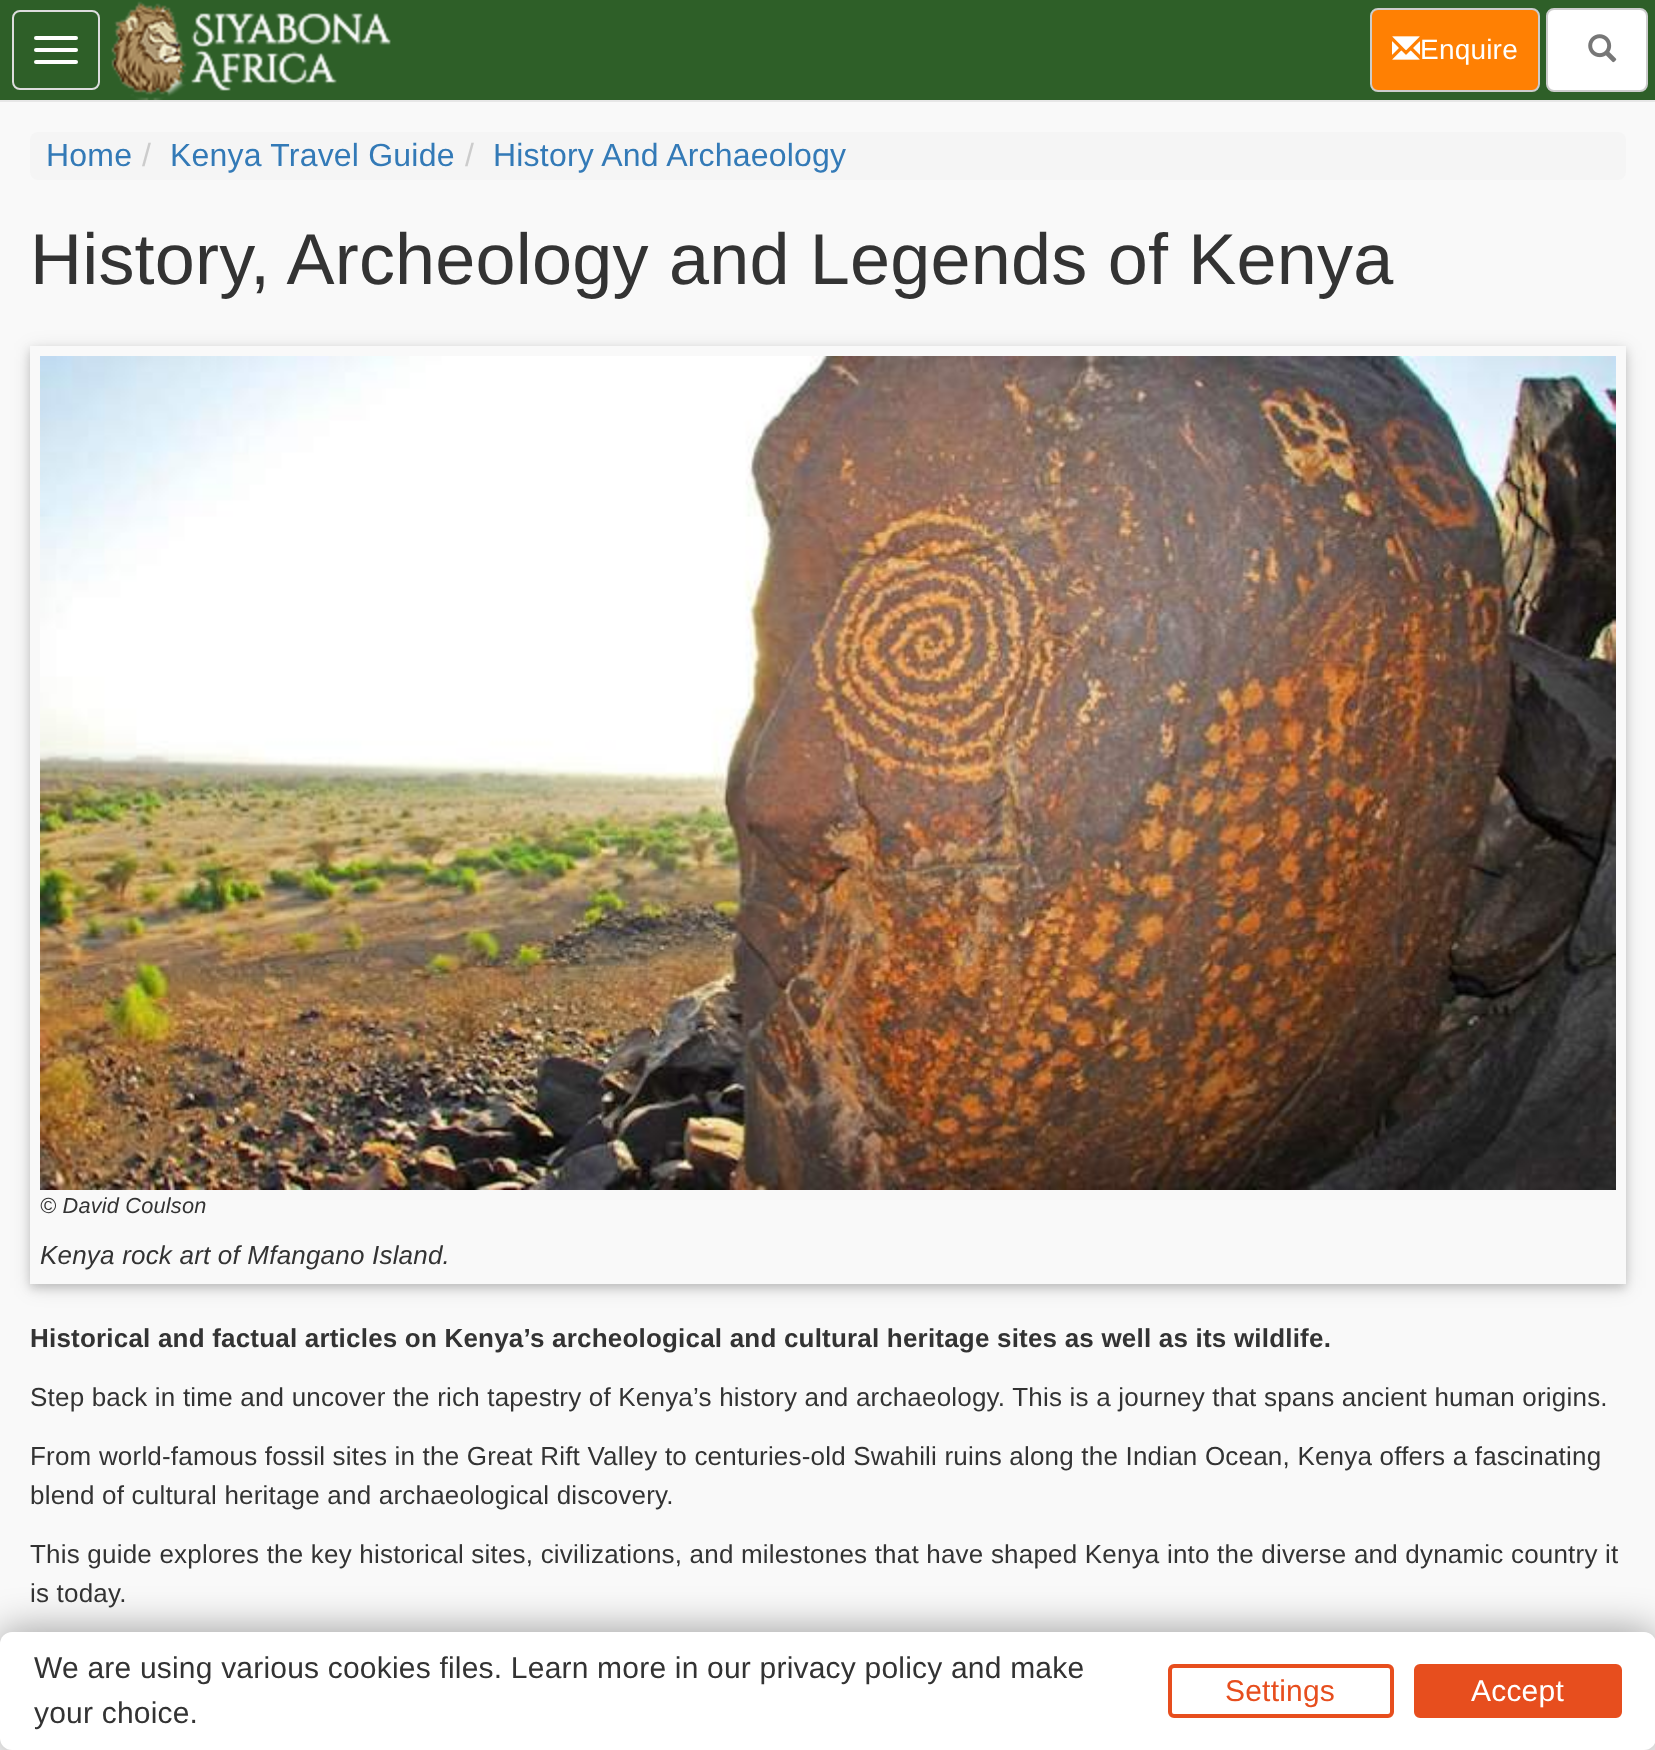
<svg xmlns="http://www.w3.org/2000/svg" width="1655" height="1750">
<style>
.a{font:28px Liberation Sans;letter-spacing:0.2px;fill:#fff}
.b{font:32px Liberation Sans;letter-spacing:0.2px;fill:#337ab7}
.c{font:32px Liberation Sans;letter-spacing:0.2px;fill:#ccc}
.d{font:72px Liberation Sans;letter-spacing:0.2px;fill:#333}
.e{font:italic 21.75px Liberation Sans;letter-spacing:0.2px;fill:#333}
.f{font:italic 26px Liberation Sans;letter-spacing:0.2px;fill:#333}
.g{font:bold 26px Liberation Sans;letter-spacing:0.2px;fill:#333}
.h{font:26px Liberation Sans;letter-spacing:0.2px;fill:#333}
.i{font:30px Liberation Sans;letter-spacing:0.2px;fill:#333}
.j{font:30px Liberation Sans;letter-spacing:0.2px;fill:#e74e1e}
.k{font:30px Liberation Sans;letter-spacing:0.2px;fill:#fff}
</style>
<defs>
<clipPath id="clip1"><path d="M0 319h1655v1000h-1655zm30 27h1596v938h-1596z" clip-rule="evenodd"/></clipPath>
<clipPath id="clip2"><path d="M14 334h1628v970h-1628zm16 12h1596v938h-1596z" clip-rule="evenodd"/></clipPath>
</defs>
<rect width="100%" height="100%" fill="#f9f9f9"/>
<path fill="#2e5f28" d="M0 0h1655v100H0z"/>
<path fill="#e7e7e7" d="M0 100h1655v2H0z"/>
<rect fill="none" stroke="#ddd" stroke-width="2" x="13" y="11" width="86" height="78" rx="7"/>
<rect fill="#fff" x="34" y="36" width="44" height="4" rx="2"/>
<rect fill="#fff" x="34" y="48" width="44" height="4" rx="2"/>
<rect fill="#fff" x="34" y="60" width="44" height="4" rx="2"/>
<image href="1.png" x="111" y="1" width="280" height="99"/>
<rect fill="#ff8003" stroke="#ccc" stroke-width="2" x="1371" y="9" width="168" height="82" rx="7"/>
<image href="2.png" x="1392" y="36" width="28" height="24"/>
<rect fill="#fff" stroke="#ccc" stroke-width="2" x="1547" y="9" width="100" height="82" rx="7"/>
<image href="3.png" x="1588" y="34" width="29" height="29"/>
<rect fill="#f5f5f5" x="30" y="132" width="1596" height="48" rx="8"/>
<g clip-path="url(#clip1)">
<path fill="#0000001f" filter="blur(10px)" d="M30 350h1596v938H30z"/>
</g>
<g clip-path="url(#clip2)">
<path fill="#00000029" filter="blur(5px)" d="M30 350h1596v938H30z"/>
</g>
<image href="4.png" x="40" y="356" width="1576" height="834"/>
<rect fill="#00000066" filter="blur(20px)" y="1632" width="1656" height="118" rx="12"/>
<rect fill="#fff" y="1632" width="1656" height="118" rx="12"/>
<rect fill="none" stroke="#e74e1e" stroke-width="4" x="1170" y="1666" width="222" height="50" rx="4"/>
<rect fill="#e74e1e" stroke="#e74e1e" stroke-width="4" x="1416" y="1666" width="204" height="50" rx="4"/>
<text class="a" x="1420" y="59">Enquire</text>
<text class="b" x="46" y="166">Home</text>
<text class="c" x="142" y="166">/</text>
<text class="b" x="170" y="166">Kenya Travel Guide</text>
<text class="c" x="465" y="166">/</text>
<text class="b" x="493" y="166">History And Archaeology</text>
<text class="d" x="30" y="284">History, Archeology and Legends of Kenya</text>
<text class="e" x="40" y="1213">© David Coulson</text>
<text class="f" x="40" y="1264">Kenya rock art of Mfangano Island.</text>
<text class="g" x="30" y="1347">Historical and factual articles on Kenya’s archeological and cultural heritage sites as well as its wildlife.</text>
<text class="h" x="30" y="1406">Step back in time and uncover the rich tapestry of Kenya’s history and archaeology. This is a journey that spans ancient human origins.</text>
<text class="h" x="30" y="1465">From world-famous fossil sites in the Great Rift Valley to centuries-old Swahili ruins along the Indian Ocean, Kenya offers a fascinating</text>
<text class="h" x="30" y="1504">blend of cultural heritage and archaeological discovery.</text>
<text class="h" x="30" y="1563">This guide explores the key historical sites, civilizations, and milestones that have shaped Kenya into the diverse and dynamic country it</text>
<text class="h" x="30" y="1602">is today.</text>
<text class="i" x="34" y="1678">We are using various cookies files. Learn more in our privacy policy and make</text>
<text class="i" x="34" y="1723">your choice.</text>
<text class="j" x="1225" y="1701">Settings</text>
<text class="k" x="1471" y="1701">Accept</text>
</svg>
